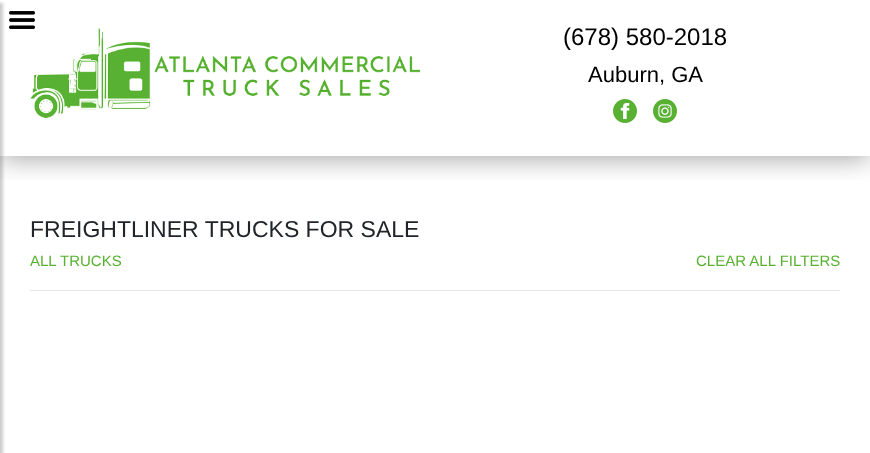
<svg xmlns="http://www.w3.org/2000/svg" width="870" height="453">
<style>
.a{font:24px Liberation Sans;fill:#000}
.b{font:22px Liberation Sans;fill:#000}
.c{font:23px Liberation Sans;fill:#212529}
.d{font:15px Liberation Sans;fill:#58b132}
</style>
<defs>
<clipPath id="clip1"><path d="M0 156h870v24H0z"/></clipPath>
</defs>
<rect width="100%" height="100%" fill="#fff"/>
<path fill="#00000033" filter="blur(1.5px)" d="M-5 3h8v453H-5z"/>
<g clip-path="url(#clip1)">
<path fill="#00000059" filter="blur(13px)" d="M1 5h868v154H1z"/>
</g>
<image href="2.png" x="30" y="28" width="390" height="90"/>
<image href="1.png" x="9" y="11" width="26" height="18"/>
<image href="3.png" x="613" y="99" width="24" height="24"/>
<image href="4.png" x="653" y="99" width="24" height="24"/>
<path fill="#e6e6e6" d="M30 290h810v1H30z"/>
<text class="a" x="563" y="45">(678) 580-2018</text>
<text class="b" x="588" y="82">Auburn, GA</text>
<text class="c" x="30" y="237">FREIGHTLINER TRUCKS FOR SALE</text>
<text class="d" x="30" y="266">ALL TRUCKS</text>
<text class="d" x="696" y="266">CLEAR ALL FILTERS</text>
</svg>
